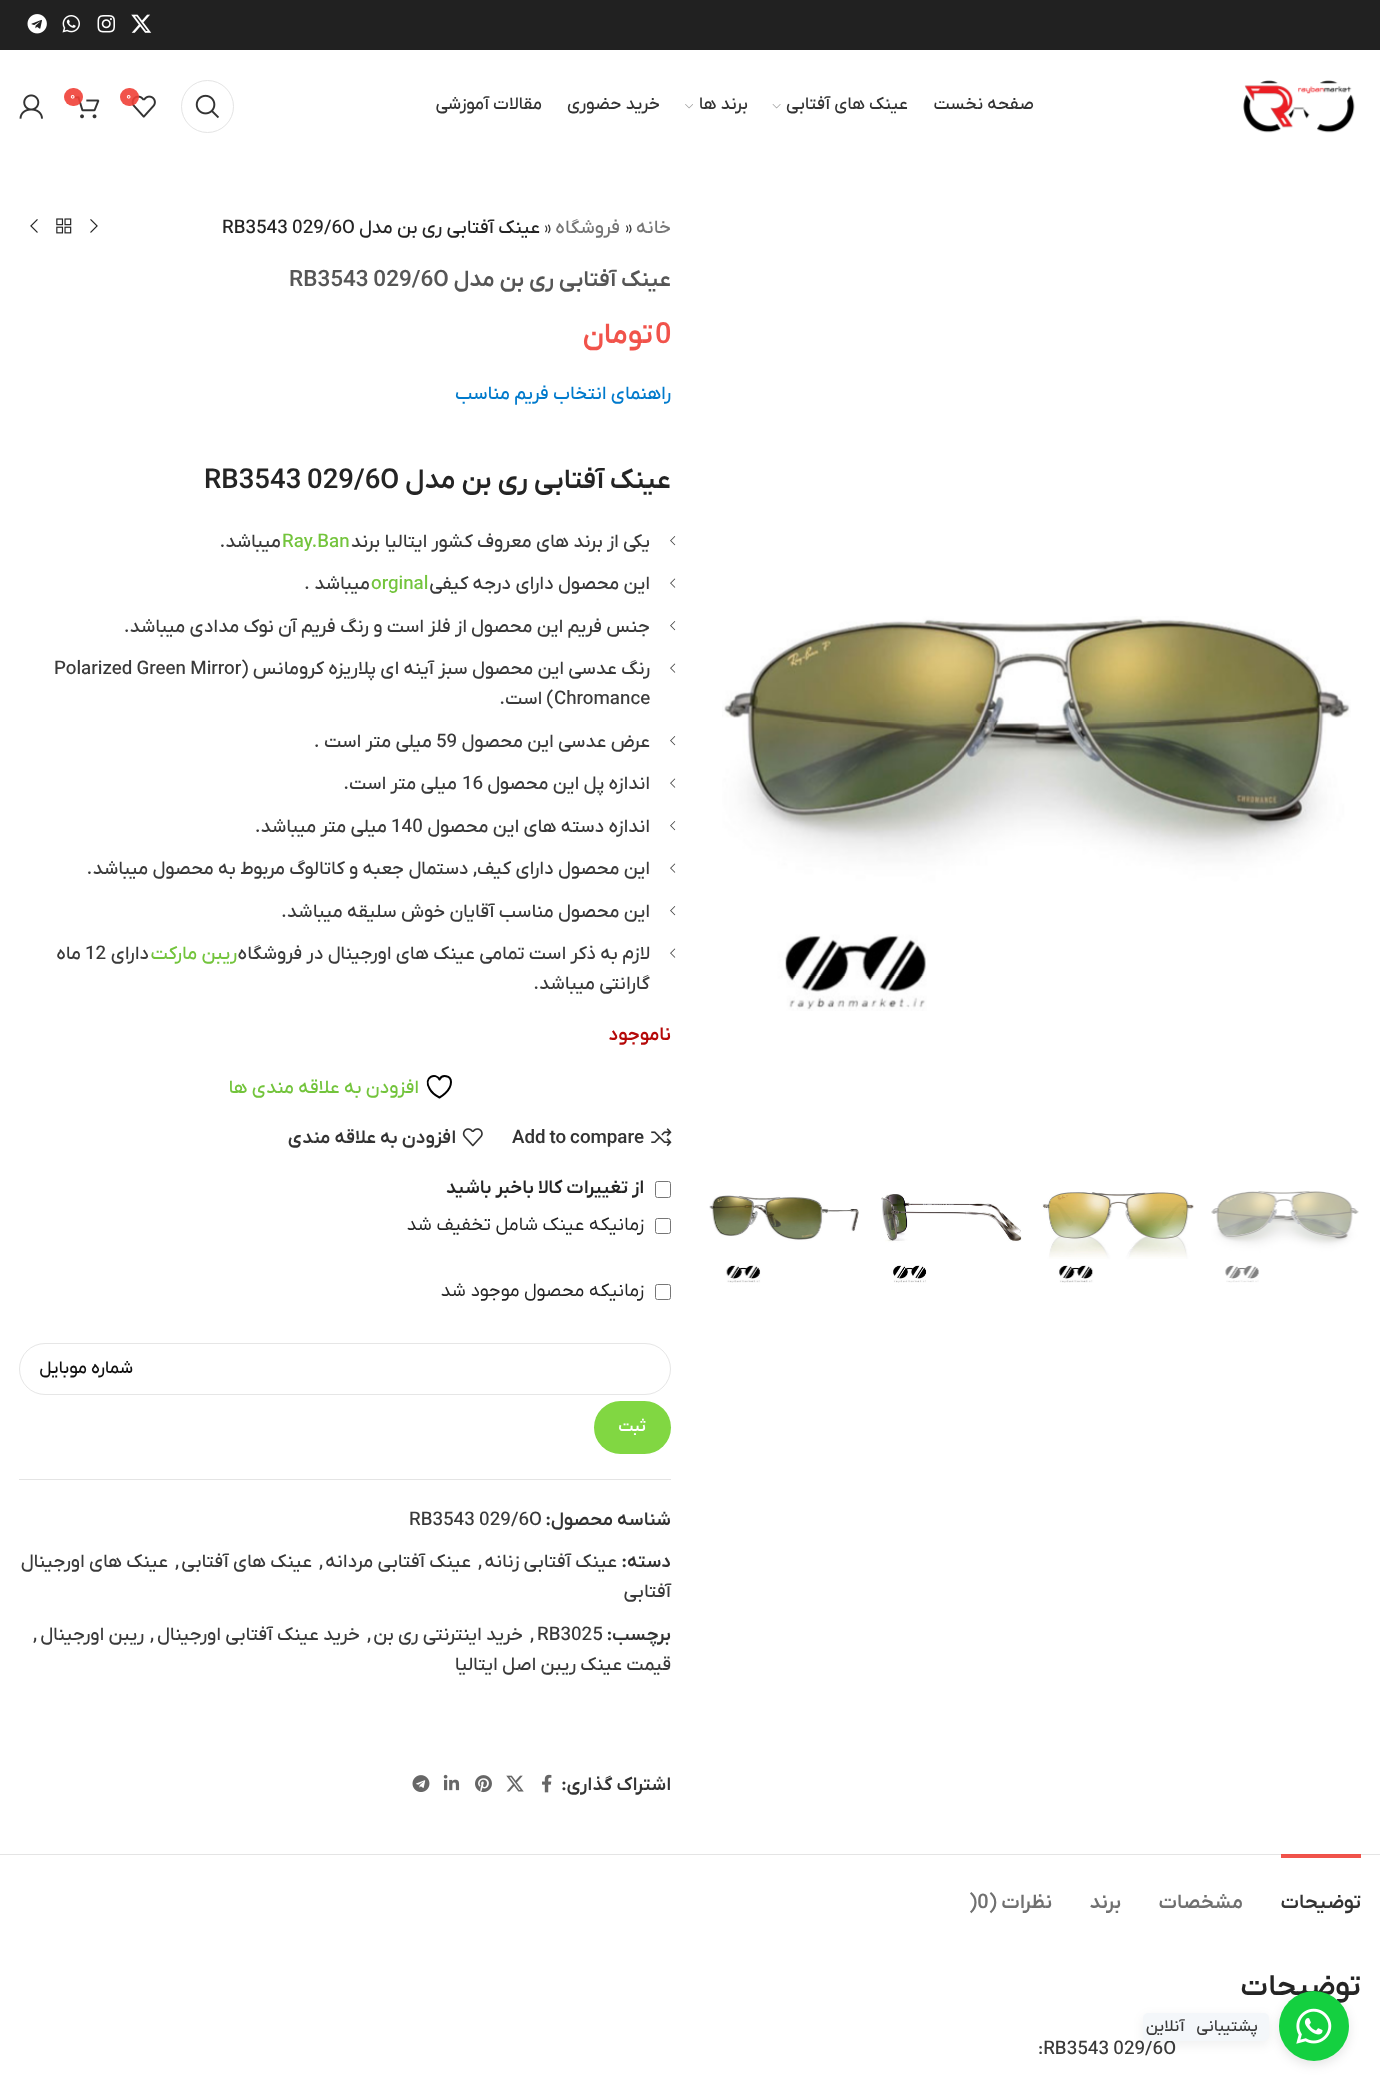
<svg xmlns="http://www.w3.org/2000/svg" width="1380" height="2086">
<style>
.a{font:500 17.5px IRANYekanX;direction:rtl;fill:#333}
.b{font:11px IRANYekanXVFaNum;fill:#fff}
.c{font:500 18.75px IRANYekanX;direction:rtl;fill:#767676}
.d{font:500 18.75px IRANYekanX;fill:#3a3a3a}
.e{font:500 18.75px IRANYekanX;direction:rtl;fill:#242424}
.f{font:500 18.75px IRANYekanX;fill:#242424}
.g{font:600 22.5px IRANYekanX;direction:rtl;fill:#565656}
.h{font:600 22.5px IRANYekanX;fill:#565656}
.i{font:600 29px IRANYekanX;fill:#f1534b}
.j{font:600 29px IRANYekanX;direction:rtl;fill:#f1534b}
.k{font:500 18.75px IRANYekanX;direction:rtl;fill:#007acc}
.l{font:600 27.5px IRANYekanX;direction:rtl;fill:#242424}
.m{font:600 27.5px IRANYekanX;fill:#242424}
.n{font:500 18.75px IRANYekanX;direction:rtl;fill:#3a3a3a}
.o{font:500 18.75px IRANYekanX;fill:#73c43c}
.p{font:500 18.75px IRANYekanX;direction:rtl;fill:#73c43c}
.q{font:600 18.75px IRANYekanX;direction:rtl;fill:#b50808}
.r{font:600 18.75px IRANYekanX;fill:#333}
.s{font:600 18.75px IRANYekanX;direction:rtl;fill:#333}
.t{font:600 18.75px IRANYekanX;direction:rtl;fill:#242424}
.u{font:18.75px IRANYekanXVFaNum;direction:rtl;fill:#242424}
.v{font:500 17.5px IRANYekanX;direction:rtl;fill:#0f0f0f}
.w{font:600 16.25px IRANYekanX;direction:rtl;fill:#fff}
.x{font:600 20px IRANYekanX;direction:rtl;fill:#333}
.y{font:600 20px IRANYekanX;direction:rtl;fill:#707070}
.z{font:600 20px IRANYekanX;fill:#707070}
.a1{font:600 30px IRANYekanX;direction:rtl;fill:#242424}
.b1{font:500 16.25px IRANYekanX;letter-spacing:-0.5px;direction:rtl;fill:#3a3a3a}
</style>
<rect width="100%" height="100%" fill="#fff"/>
<path fill="#f1534b" d="M1281 1855h80v3H1281z"/>
<path fill="#212121" d="M0 0h1380v50H0z"/>
<image href="1.png" x="131" y="14" width="21" height="19"/>
<image href="2.png" x="97" y="15" width="18" height="18"/>
<image href="3.png" x="62" y="15" width="18" height="18"/>
<image href="4.png" x="27" y="14" width="20" height="20"/>
<image href="5.png" x="1243" y="80" width="112" height="53"/>
<image href="6.png" x="772" y="104" width="9" height="5"/>
<image href="7.png" x="685" y="104" width="8" height="5"/>
<circle fill="none" stroke="#e4e4e4" cx="207.5" cy="106.5" r="26"/>
<image href="8.png" x="195" y="94" width="24" height="25"/>
<image href="9.png" x="131" y="95" width="25" height="23"/>
<rect fill="#ef4037e6" x="120" y="88" width="19" height="18" rx="9"/>
<image href="10.png" x="75" y="96" width="25" height="23"/>
<rect fill="#ef4037e6" x="64" y="88" width="19" height="18" rx="9"/>
<image href="11.png" x="19" y="94" width="24" height="25"/>
<image href="12.png" x="722" y="616" width="629" height="395"/>
<image href="13.png" x="1211" y="1191" width="148" height="92"/>
<image href="14.png" x="1042" y="1192" width="152" height="91"/>
<image href="15.png" x="881" y="1194" width="141" height="89"/>
<image href="16.png" x="709" y="1195" width="150" height="88"/>
<image href="17.png" x="90" y="219" width="8" height="14"/>
<image href="18.png" x="56" y="218" width="16" height="16"/>
<image href="19.png" x="30" y="219" width="8" height="14"/>
<image href="20.png" x="670" y="536" width="6" height="10"/>
<image href="21.png" x="670" y="578" width="6" height="10"/>
<image href="20.png" x="670" y="621" width="6" height="10"/>
<image href="21.png" x="670" y="663" width="6" height="10"/>
<image href="20.png" x="670" y="736" width="6" height="10"/>
<image href="21.png" x="670" y="778" width="6" height="10"/>
<image href="20.png" x="670" y="821" width="6" height="10"/>
<image href="21.png" x="670" y="863" width="6" height="10"/>
<image href="20.png" x="670" y="906" width="6" height="10"/>
<image href="21.png" x="670" y="948" width="6" height="10"/>
<path fill="none" stroke="#000" stroke-width="2" stroke-linecap="round" stroke-linejoin="round" d="M451 1082c0-6.5-9-8-11.5-2.5c-3.5-7.5-16.5-2.5-10 9c2 4 6 7 10 9c0 0 11.5-6 11.5-15.5z"/>
<image href="22.png" x="651" y="1128" width="21" height="19"/>
<image href="23.png" x="462" y="1128" width="21" height="19"/>
<rect fill="none" stroke="#767676" x="655.5" y="1181.5" width="15" height="16" rx="2"/>
<rect fill="none" stroke="#767676" x="655.5" y="1218.5" width="15" height="15" rx="2"/>
<rect fill="none" stroke="#767676" x="655.5" y="1284.5" width="15" height="15" rx="2"/>
<rect fill="none" stroke="#e6e6e6" x="19.5" y="1343.5" width="651" height="51" rx="25.5"/>
<rect fill="#81d742" x="594" y="1401" width="77" height="53" rx="26.5"/>
<path fill="#e4e4e4" d="M19 1479h652v1H19z"/>
<image href="24.png" x="542" y="1774" width="10" height="19"/>
<image href="25.png" x="506" y="1775" width="18" height="17"/>
<image href="26.png" x="475" y="1775" width="17" height="18"/>
<image href="27.png" x="443" y="1774" width="17" height="17"/>
<image href="28.png" x="412" y="1775" width="18" height="17"/>
<path fill="#e4e4e4" d="M0 1854h1380v1H0z"/>
<path fill="#ee5048" d="M1281 1854h80v1H1281z"/>
<rect fill="#0000001a" filter="blur(5.5px)" x="1279" y="1995" width="70" height="70" rx="35"/>
<text class="a" x="1034" y="109">صفحه نخست</text>
<text class="a" x="908" y="109">عینک های آفتابی</text>
<text class="a" x="748" y="109">برند ها</text>
<text class="a" x="660" y="109">خرید حضوری</text>
<text class="a" x="542" y="109">مقالات آموزشی</text>
<text class="b" x="126" y="99">0</text>
<text class="b" x="70" y="99">0</text>
<text class="c" x="671" y="233">خانه</text>
<text class="d" x="625" y="233">»</text>
<text class="c" x="620" y="233">فروشگاه</text>
<text class="d" x="544" y="233">»</text>
<text class="e" x="540" y="233">عینک آفتابی ری بن مدل</text>
<text class="f" x="222" y="233">RB3543 029/6O</text>
<text class="g" x="671" y="286">عینک آفتابی ری بن مدل</text>
<text class="h" x="289" y="286">RB3543 029/6O</text>
<text class="i" x="655" y="343">0</text>
<text class="j" x="653" y="343">تومان</text>
<text class="k" x="671" y="399">راهنمای انتخاب فریم مناسب</text>
<text class="l" x="671" y="488">عینک آفتابی ری بن مدل</text>
<text class="m" x="204" y="488">RB3543 029/6O</text>
<text class="n" x="650" y="547">یکی از برند های معروف کشور ایتالیا برند</text>
<text class="o" x="282" y="547">Ray.Ban</text>
<text class="n" x="281" y="547">میباشد.</text>
<text class="n" x="650" y="589">این محصول دارای درجه کیفی</text>
<text class="o" x="371" y="589">orginal</text>
<text class="n" x="370" y="589">میباشد .</text>
<text class="n" x="650" y="632">جنس فریم این محصول از فلز است و رنگ فریم آن نوک مدادی میباشد.</text>
<text class="n" x="650" y="674">رنگ عدسی این محصول سبز آینه ای پلاریزه کرومانس (</text>
<text class="d" x="54" y="674">Polarized Green Mirror</text>
<text class="d" x="554" y="704">Chromance</text>
<text class="n" x="554" y="704">) است.</text>
<text class="n" x="650" y="747">عرض عدسی این محصول</text>
<text class="d" x="436" y="747">59</text>
<text class="n" x="432" y="747">میلی متر است .</text>
<text class="n" x="650" y="789">اندازه پل این محصول</text>
<text class="d" x="462" y="789">16</text>
<text class="n" x="457" y="789">میلی متر است.</text>
<text class="n" x="650" y="832">اندازه دسته های این محصول</text>
<text class="d" x="391" y="832">140</text>
<text class="n" x="387" y="832">میلی متر میباشد.</text>
<text class="n" x="650" y="874">این محصول دارای کیف, دستمال جعبه و کاتالوگ مربوط به محصول میباشد.</text>
<text class="n" x="650" y="917">این محصول مناسب آقایان خوش سلیقه میباشد.</text>
<text class="n" x="650" y="959">لازم به ذکر است تمامی عینک های اورجینال در فروشگاه</text>
<text class="p" x="237" y="959">ریبن مارکت</text>
<text class="n" x="149" y="959">دارای</text>
<text class="d" x="85" y="959">12</text>
<text class="n" x="81" y="959">ماه</text>
<text class="n" x="650" y="989">گارانتی میباشد.</text>
<text class="q" x="671" y="1040">ناموجود</text>
<text class="p" x="419" y="1093">افزودن به علاقه مندی ها</text>
<text class="r" x="512" y="1143">Add to compare</text>
<text class="s" x="456" y="1143">افزودن به علاقه مندی</text>
<text class="t" x="644" y="1193">از تغییرات کالا باخبر باشید</text>
<text class="u" x="644" y="1230">زمانیکه عینک شامل تخفیف شد</text>
<text class="u" x="644" y="1296">زمانیکه محصول موجود شد</text>
<text class="v" x="133" y="1373">شماره موبایل</text>
<text class="w" x="646" y="1431">ثبت</text>
<text class="s" x="671" y="1525">شناسه محصول:</text>
<text class="d" x="409" y="1525">RB3543 029/6O</text>
<text class="s" x="671" y="1567">دسته:</text>
<text class="n" x="617" y="1567">عینک آفتابی زنانه</text>
<text class="d" x="478" y="1567">,</text>
<text class="n" x="471" y="1567">عینک آفتابی مردانه</text>
<text class="d" x="319" y="1567">,</text>
<text class="n" x="312" y="1567">عینک های آفتابی</text>
<text class="d" x="175" y="1567">,</text>
<text class="n" x="168" y="1567">عینک های اورجینال</text>
<text class="n" x="671" y="1597">آفتابی</text>
<text class="s" x="671" y="1640">برچسب:</text>
<text class="d" x="537" y="1640">RB3025</text>
<text class="d" x="530" y="1640">,</text>
<text class="n" x="523" y="1640">خرید اینترنتی ری بن</text>
<text class="d" x="367" y="1640">,</text>
<text class="n" x="360" y="1640">خرید عینک آفتابی اورجینال</text>
<text class="d" x="150" y="1640">,</text>
<text class="n" x="144" y="1640">ریبن اورجینال</text>
<text class="d" x="33" y="1640">,</text>
<text class="n" x="671" y="1670">قیمت عینک ریبن اصل ایتالیا</text>
<text class="s" x="671" y="1790">اشتراک گذاری:</text>
<text class="x" x="1361" y="1908">توضیحات</text>
<text class="y" x="1243" y="1908">مشخصات</text>
<text class="y" x="1121" y="1908">برند</text>
<text class="y" x="1052" y="1908">نظرات (</text>
<text class="z" x="969" y="1908">)0</text>
<text class="a1" x="1361" y="1995">توضیحات</text>
<text class="d" x="1038" y="2054">:RB3543 029/6O</text>
<circle fill="#14d040" cx="1314" cy="2026" r="35"/>
<image href="29.png" x="1296" y="2008" width="36" height="36"/>
<rect fill="#0000000f" filter="blur(5.5px)" x="1143" y="2016" width="126" height="29" rx="5"/>
<rect fill="#f4f7fa" x="1143" y="2013" width="126" height="28" rx="5"/>
<text class="b1" x="1258" y="2031" word-spacing="8">پشتیبانی آنلاین</text>
</svg>
